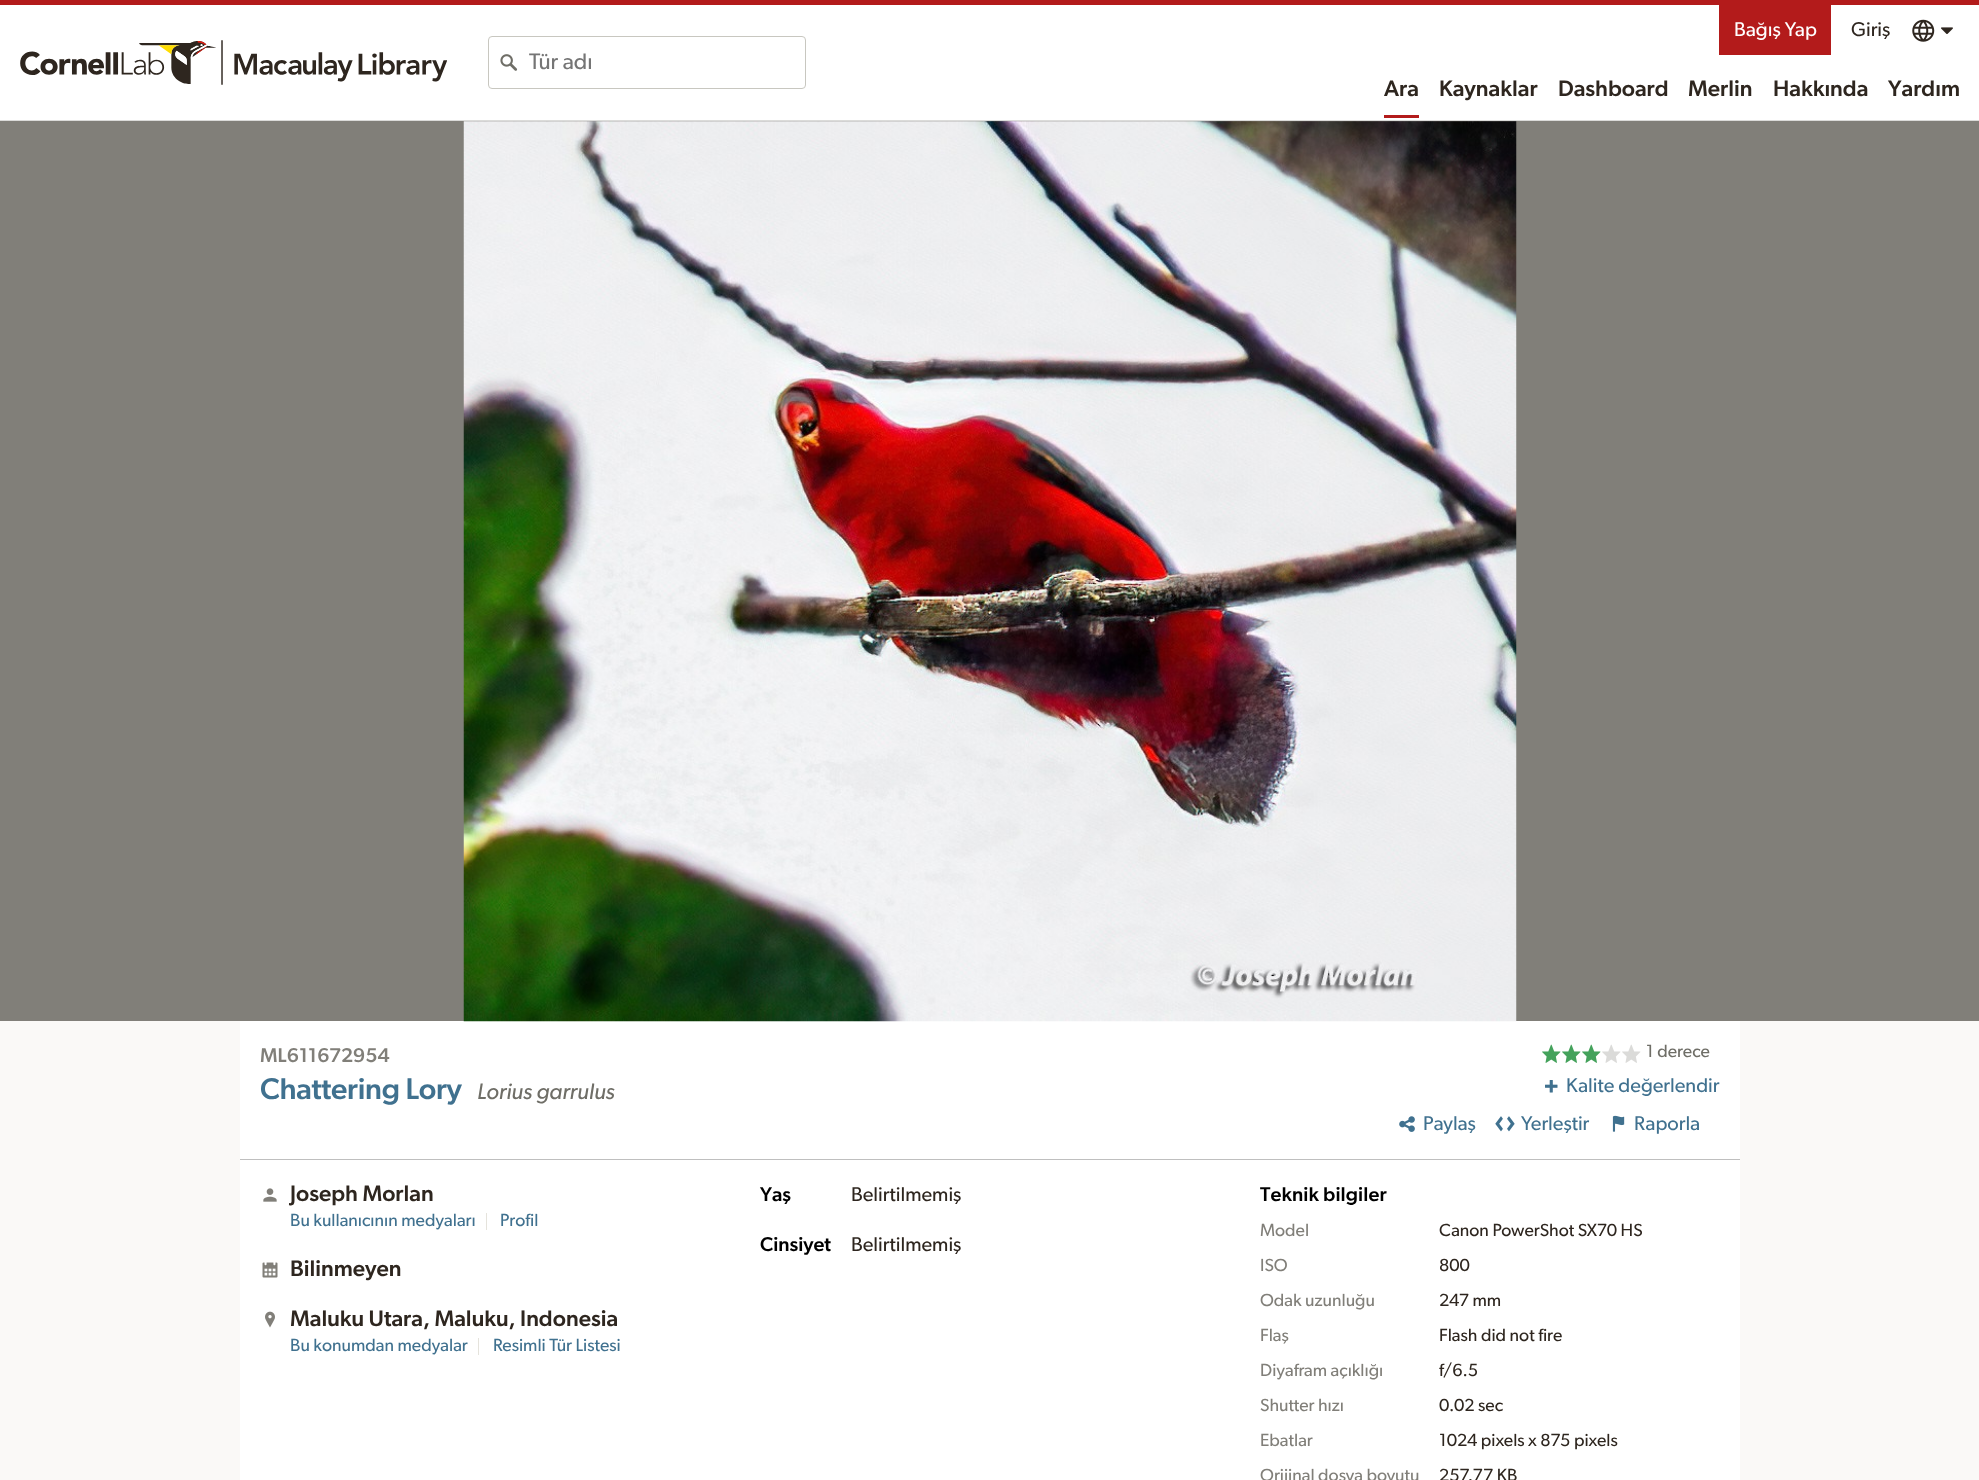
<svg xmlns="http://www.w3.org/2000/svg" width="1979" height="1480">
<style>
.a{font:22.6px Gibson;fill:#757575}
.b{font:20px Gibson;fill:#fff}
.c{font:20px Gibson;fill:#2e261f}
.d{font:500 22.6px Gibson;fill:#2e261f}
.e{font:500 20px Gibson;letter-spacing:0.1px;fill:#817f79}
.f{font:500 30px Gibson;letter-spacing:-0.25px;fill:#40718f}
.g{font:italic 22.6px Gibson;fill:#6f6e67}
.h{font:17.6px Gibson;fill:#6f6e67}
.i{font:20px Gibson;fill:#40718f}
.j{font:17.6px Gibson;fill:#40718f}
.k{font:500 20px Gibson;fill:#000}
.l{font:500 20px Gibson;letter-spacing:0.1px;fill:#000}
.m{font:17.6px Gibson;fill:#817f79}
.n{font:17.6px Gibson;fill:#2e261f}
</style>
<rect width="100%" height="100%" fill="#fff"/>
<path fill="#b31b1b" d="M0 0h1979v5H0z"/>
<path fill="#dbdbd9" d="M0 120h1979v1H0z"/>
<image href="1.png" x="20" y="40" width="427" height="45"/>
<rect fill="none" stroke="#c8c7c0" x="488.5" y="36.5" width="317" height="52" rx="3.5"/>
<image href="2.png" x="500" y="54" width="18" height="17"/>
<path fill="#b31b1b" d="M1719 5h112v50H1719z"/>
<image href="3.png" x="1912" y="19" width="23" height="23"/>
<image href="4.png" x="1941" y="27" width="12" height="7"/>
<path fill="#b31b1b" d="M1384 115h35v3H1384z"/>
<path fill="#817f79" d="M0 121h1979v900H0z"/>
<path fill="#faf9f7" d="M0 1021h1979v459H0z"/>
<path fill="#fff" d="M240 1021h1500v459H240z"/>
<image href="5.png" x="463" y="121" width="1054" height="901"/>
<image href="6.png" x="1542" y="1044" width="19" height="19"/>
<image href="6.png" x="1562" y="1044" width="19" height="19"/>
<image href="6.png" x="1582" y="1044" width="19" height="19"/>
<image href="7.png" x="1602" y="1044" width="19" height="19"/>
<image href="7.png" x="1622" y="1044" width="19" height="19"/>
<image href="8.png" x="1545" y="1080" width="13" height="13"/>
<image href="9.png" x="1399" y="1116" width="16" height="16"/>
<image href="10.png" x="1495" y="1116" width="20" height="16"/>
<image href="11.png" x="1612" y="1115" width="13" height="17"/>
<path fill="#bfbfbf" d="M240 1159h1500v1H240z"/>
<image href="12.png" x="263" y="1188" width="14" height="14"/>
<path fill="#e5e3dc" d="M486 1213h1v17H486z"/>
<image href="13.png" x="262" y="1262" width="16" height="16"/>
<image href="14.png" x="265" y="1311" width="10" height="17"/>
<path fill="#e5e3dc" d="M478 1338h1v17H478z"/>
<text class="a" x="529" y="69">Tür adı</text>
<text class="b" x="1734" y="36">Bağış Yap</text>
<text class="c" x="1851" y="36">Giriş</text>
<text class="d" x="1384" y="96">Ara</text>
<text class="d" x="1439" y="96">Kaynaklar</text>
<text class="d" x="1558" y="96">Dashboard</text>
<text class="d" x="1688" y="96">Merlin</text>
<text class="d" x="1773" y="96">Hakkında</text>
<text class="d" x="1888" y="96">Yardım</text>
<text class="e" x="260" y="1062">ML611672954</text>
<text class="f" x="260" y="1099">Chattering Lory</text>
<text class="g" x="477" y="1099">Lorius garrulus</text>
<text class="h" x="1646" y="1057">1 derece</text>
<text class="i" x="1566" y="1092">Kalite değerlendir</text>
<text class="i" x="1423" y="1130">Paylaş</text>
<text class="i" x="1521" y="1130">Yerleştir</text>
<text class="i" x="1634" y="1130">Raporla</text>
<text class="d" x="290" y="1201">Joseph Morlan</text>
<text class="j" x="290" y="1226">Bu kullanıcının medyaları</text>
<text class="j" x="500" y="1226">Profil</text>
<text class="d" x="290" y="1276">Bilinmeyen</text>
<text class="d" x="290" y="1326">Maluku Utara, Maluku, Indonesia</text>
<text class="j" x="290" y="1351">Bu konumdan medyalar</text>
<text class="j" x="493" y="1351">Resimli Tür Listesi</text>
<text class="k" x="760" y="1201">Yaş</text>
<text class="c" x="851" y="1201">Belirtilmemiş</text>
<text class="k" x="760" y="1251">Cinsiyet</text>
<text class="c" x="851" y="1251">Belirtilmemiş</text>
<text class="l" x="1260" y="1201">Teknik bilgiler</text>
<text class="m" x="1260" y="1236">Model</text>
<text class="n" x="1439" y="1236">Canon PowerShot SX70 HS</text>
<text class="m" x="1260" y="1271">ISO</text>
<text class="n" x="1439" y="1271">800</text>
<text class="m" x="1260" y="1306">Odak uzunluğu</text>
<text class="n" x="1439" y="1306">247 mm</text>
<text class="m" x="1260" y="1341">Flaş</text>
<text class="n" x="1439" y="1341">Flash did not fire</text>
<text class="m" x="1260" y="1376">Diyafram açıklığı</text>
<text class="n" x="1439" y="1376">f/6.5</text>
<text class="m" x="1260" y="1411">Shutter hızı</text>
<text class="n" x="1439" y="1411">0.02 sec</text>
<text class="m" x="1260" y="1446">Ebatlar</text>
<text class="n" x="1439" y="1446">1024 pixels x 875 pixels</text>
<text class="m" x="1260" y="1481">Orijinal dosya boyutu</text>
<text class="n" x="1439" y="1481">257.77 KB</text>
</svg>
